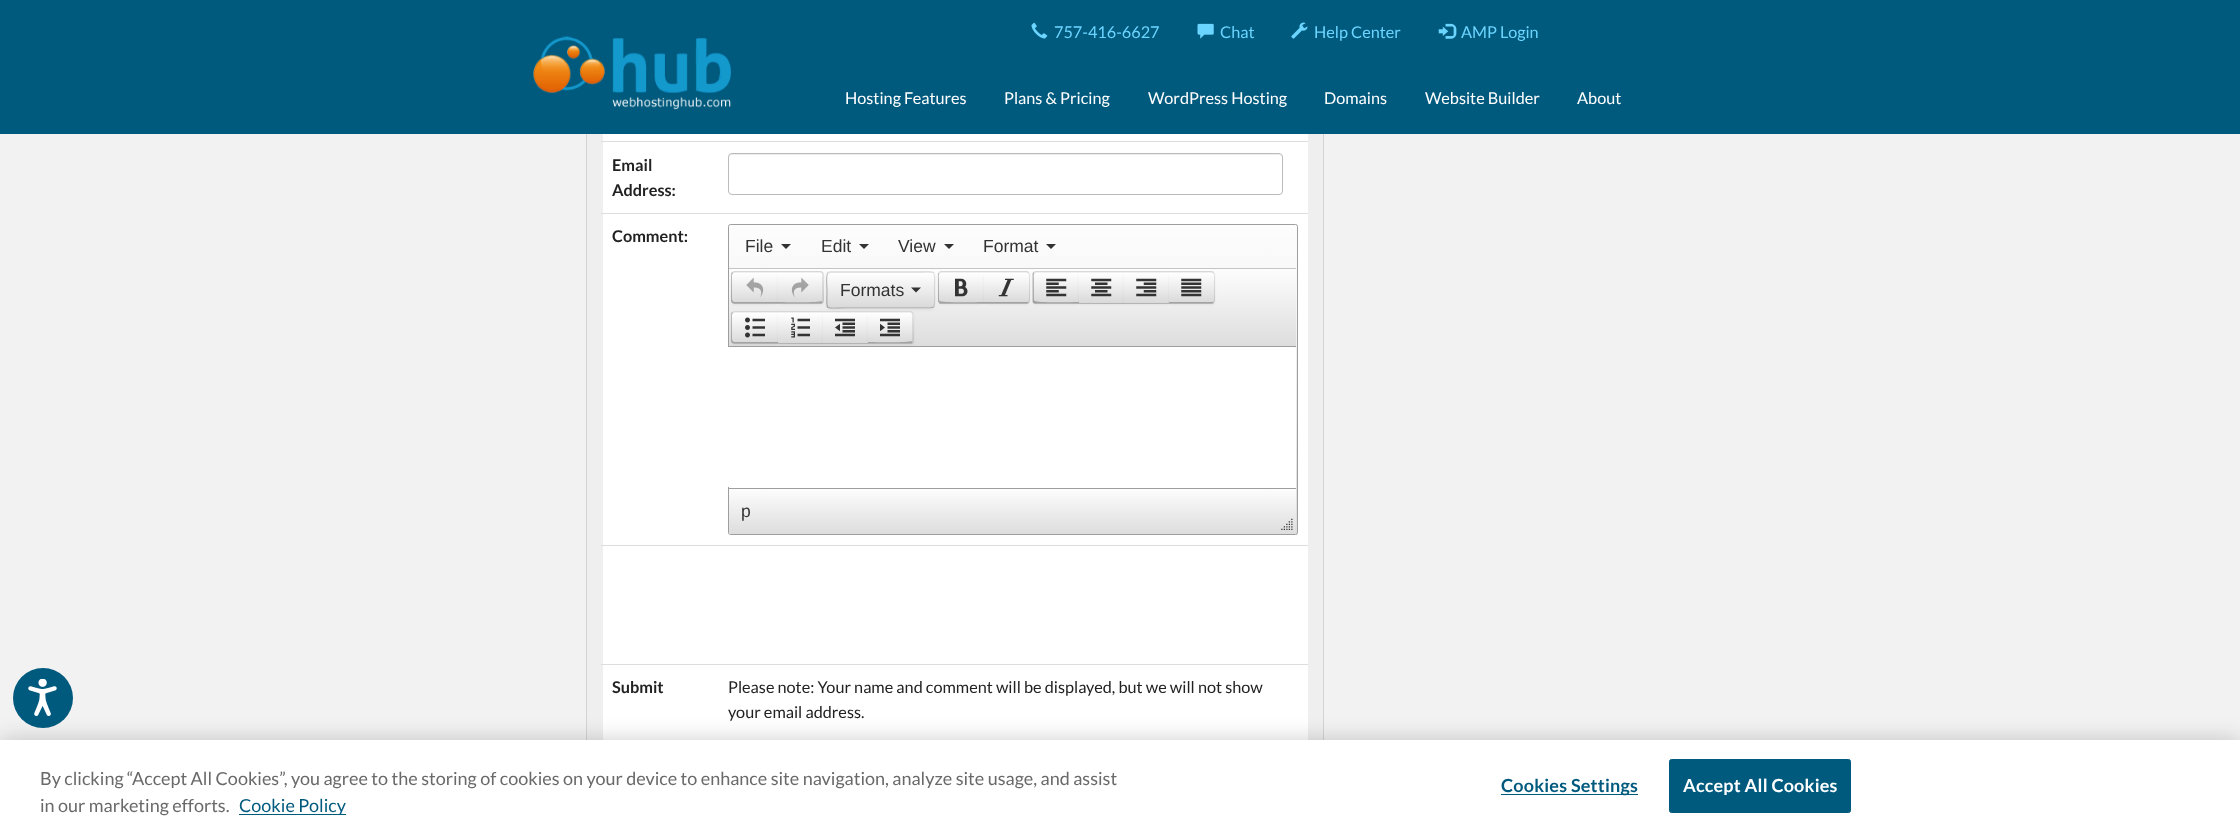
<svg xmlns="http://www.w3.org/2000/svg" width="2240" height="833">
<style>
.a{font:16.25px Lato;fill:#6bd5ff}
.b{font:16.25px Lato;fill:#fff}
.c{font:bold 16.25px Lato;fill:#222}
.d{font:17.5px Liberation Sans;fill:#333}
.e{font:16.25px Lato;fill:#222}
.f{font:18px Lato;fill:#696969}
.g{font:18px Lato;fill:#005a7e}
.h{font:bold 18px Lato;letter-spacing:0.2px;fill:#005a7e}
.i{font:bold 18px Lato;letter-spacing:0.2px;fill:#fff}
</style>
<defs>
<clipPath id="clip1"><rect x="728" y="224" width="570" height="311" rx="2.5"/></clipPath>
<linearGradient id="g1" gradientUnits="userSpaceOnUse" x1="1013" y1="225" x2="1013" y2="534"><stop offset="0" stop-color="#fdfdfd"/><stop offset="1" stop-color="#ddd"/></linearGradient>
<linearGradient id="g2" gradientUnits="userSpaceOnUse" x1="1013" y1="269" x2="1013" y2="346"><stop offset="0" stop-color="#fdfdfd"/><stop offset="1" stop-color="#ddd"/></linearGradient>
<clipPath id="clip2"><path d="M735 271h43v33h-43c-2 0-4-2-4-4v-25c0-2 2-4 4-4z"/></clipPath>
<linearGradient id="g3" gradientUnits="userSpaceOnUse" x1="755" y1="273" x2="755" y2="303"><stop offset="0" stop-color="#fff"/><stop offset="1" stop-color="#d9d9d9"/></linearGradient>
<clipPath id="clip3"><path d="M778 271h42c2 0 4 2 4 4v25c0 2-2 4-4 4h-42z"/></clipPath>
<linearGradient id="g4" gradientUnits="userSpaceOnUse" x1="800" y1="273" x2="800" y2="303"><stop offset="0" stop-color="#fff"/><stop offset="1" stop-color="#d9d9d9"/></linearGradient>
<clipPath id="clip4"><rect x="826" y="271" width="109" height="38" rx="4"/></clipPath>
<linearGradient id="g5" gradientUnits="userSpaceOnUse" x1="881" y1="273" x2="881" y2="308"><stop offset="0" stop-color="#fff"/><stop offset="1" stop-color="#d9d9d9"/></linearGradient>
<clipPath id="clip5"><path d="M942 271h42v33h-42c-2 0-4-2-4-4v-25c0-2 2-4 4-4z"/></clipPath>
<linearGradient id="g6" gradientUnits="userSpaceOnUse" x1="961" y1="273" x2="961" y2="303"><stop offset="0" stop-color="#fff"/><stop offset="1" stop-color="#d9d9d9"/></linearGradient>
<clipPath id="clip6"><path d="M984 271h42c2 0 4 2 4 4v25c0 2-2 4-4 4h-42z"/></clipPath>
<linearGradient id="g7" gradientUnits="userSpaceOnUse" x1="1006" y1="273" x2="1006" y2="303"><stop offset="0" stop-color="#fff"/><stop offset="1" stop-color="#d9d9d9"/></linearGradient>
<clipPath id="clip7"><path d="M1037 271h42v33h-42c-2 0-4-2-4-4v-25c0-2 2-4 4-4z"/></clipPath>
<linearGradient id="g8" gradientUnits="userSpaceOnUse" x1="1056" y1="273" x2="1056" y2="303"><stop offset="0" stop-color="#fff"/><stop offset="1" stop-color="#d9d9d9"/></linearGradient>
<linearGradient id="g9" gradientUnits="userSpaceOnUse" x1="1101" y1="273" x2="1101" y2="303"><stop offset="0" stop-color="#fff"/><stop offset="1" stop-color="#d9d9d9"/></linearGradient>
<linearGradient id="g10" gradientUnits="userSpaceOnUse" x1="1146" y1="273" x2="1146" y2="303"><stop offset="0" stop-color="#fff"/><stop offset="1" stop-color="#d9d9d9"/></linearGradient>
<clipPath id="clip8"><path d="M1169 271h42c2 0 4 2 4 4v25c0 2-2 4-4 4h-42z"/></clipPath>
<linearGradient id="g11" gradientUnits="userSpaceOnUse" x1="1191" y1="273" x2="1191" y2="303"><stop offset="0" stop-color="#fff"/><stop offset="1" stop-color="#d9d9d9"/></linearGradient>
<clipPath id="clip9"><path d="M735 311h43v33h-43c-2 0-4-2-4-4v-25c0-2 2-4 4-4z"/></clipPath>
<linearGradient id="g12" gradientUnits="userSpaceOnUse" x1="755" y1="313" x2="755" y2="343"><stop offset="0" stop-color="#fff"/><stop offset="1" stop-color="#d9d9d9"/></linearGradient>
<linearGradient id="g13" gradientUnits="userSpaceOnUse" x1="800" y1="313" x2="800" y2="343"><stop offset="0" stop-color="#fff"/><stop offset="1" stop-color="#d9d9d9"/></linearGradient>
<linearGradient id="g14" gradientUnits="userSpaceOnUse" x1="845" y1="313" x2="845" y2="343"><stop offset="0" stop-color="#fff"/><stop offset="1" stop-color="#d9d9d9"/></linearGradient>
<clipPath id="clip10"><path d="M868 311h42c2 0 4 2 4 4v25c0 2-2 4-4 4h-42z"/></clipPath>
<linearGradient id="g15" gradientUnits="userSpaceOnUse" x1="890" y1="313" x2="890" y2="343"><stop offset="0" stop-color="#fff"/><stop offset="1" stop-color="#d9d9d9"/></linearGradient>
<linearGradient id="g16" gradientUnits="userSpaceOnUse" x1="1013" y1="489" x2="1013" y2="534"><stop offset="0" stop-color="#fdfdfd"/><stop offset="1" stop-color="#ddd"/></linearGradient>
</defs>
<rect width="100%" height="100%" fill="#f2f2f2"/>
<path fill="#efefef" d="M587 134h736v606H587z"/>
<path fill="none" stroke="#d4d4d4" d="M586.5 21.5h737v808H586.5z"/>
<path fill="#fff" d="M603 665h705v75H603z"/>
<path fill="#00000033" filter="blur(11px)" d="M0 740h2240v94H0z"/>
<circle fill="#005a7e" cx="43" cy="698" r="30"/>
<image href="1.png" x="28" y="679" width="29" height="37"/>
<path fill="#005a7e" d="M0 0h2240v134H0z"/>
<image href="2.png" x="1031" y="22" width="17" height="17"/>
<image href="3.png" x="1197" y="23" width="17" height="16"/>
<image href="4.png" x="1291" y="22" width="17" height="17"/>
<image href="5.png" x="1438" y="23" width="19" height="16"/>
<image href="6.png" x="533" y="36" width="198" height="74"/>
<path fill="#fff" d="M603 134h705v7H603z"/>
<path fill="#ddd" d="M601 141h707v1H601z"/>
<path fill="#fff" d="M603 142h705v71H603z"/>
<path fill="#ececec" d="M731 155h548c1 0 2 1 2 3v-2c0-1-1-2-3-2h-546c-2 0-3 1-3 2v2c0-2 1-3 2-3z"/>
<rect fill="none" stroke="#bbb" x="728.5" y="153.5" width="554" height="41" rx="3.5"/>
<path fill="#fff" d="M603 214h705v331H603z"/>
<path fill="#ddd" d="M601 213h707v1H601z"/>
<g clip-path="url(#clip1)">
<path fill="url(#g1)" d="M728 225h570v309H728z"/>
</g>
<rect fill="none" stroke="#9e9e9e" x="728.5" y="224.5" width="569" height="310" rx="2"/>
<path fill="#c4c4c4" d="M729 268h567v1H729z"/>
<path fill="#333" d="M781 244h10l-5 5z"/>
<path fill="#333" d="M859 244h10l-5 5z"/>
<path fill="#333" d="M944 244h10l-5 5z"/>
<path fill="#333" d="M1046 244h10l-5 5z"/>
<path fill="url(#g2)" d="M729 269h567v77H729z"/>
<rect fill="#0000000d" filter="blur(1px)" x="731" y="273" width="47" height="32" rx="4"/>
<path fill="#f0f0f0" d="M735 271h43v33h-43c-2 0-4-2-4-4v-25c0-2 2-4 4-4z"/>
<g clip-path="url(#clip2)">
<path fill="url(#g3)" d="M731 273h47v30H731z"/>
</g>
<path fill="#0000001a" d="M735 272l-2 1l-1-1l2-1h44v1z"/>
<path fill="#00000040" d="M778 304h-44l-2-1l1-1h2h43z"/>
<path fill="#00000040" d="M731 273.5l1-1.5l1 1l-1 2v25l1.5 1.5l-1.5 1.5l-1-1.5z"/>
<image href="7.png" x="746" y="277" width="18" height="20"/>
<rect fill="#0000000d" filter="blur(1px)" x="778" y="273" width="46" height="32" rx="4"/>
<path fill="#f0f0f0" d="M778 271h42c2 0 4 2 4 4v25c0 2-2 4-4 4h-42z"/>
<g clip-path="url(#clip3)">
<path fill="url(#g4)" d="M778 273h46v30H778z"/>
</g>
<path fill="#ffffff33" d="M778 274h28c17 0 16-4 16 10v19c0-1 1-2 1-3v-24c0-2-1-3-3-3h-42z"/>
<path fill="#0000001a" d="M778 272v-1h43l2 1l-1 1l-2-1z"/>
<path fill="#0000001a" d="M821.5 301.5l.5-1.5v-21c0-1.5 .5-4-.5-5.5l1.5-1.5l1 1.5v28l-1 1.5z"/>
<path fill="#00000040" d="M821 304h-43v-2c5 0 42 1 43-1l2 2z"/>
<image href="8.png" x="791" y="277" width="18" height="20"/>
<rect fill="#0000000d" filter="blur(1px)" x="826" y="273" width="109" height="37" rx="4"/>
<rect fill="#f0f0f0" x="826" y="271" width="109" height="38" rx="4"/>
<g clip-path="url(#clip4)">
<path fill="url(#g5)" d="M826 273h109v35H826z"/>
</g>
<path fill="none" stroke="#0000001a" stroke-width="1.2" d="M828 273l2-1h84.5c23.5 0 20-4 20 18c0 3 1 15-1 17"/>
<path fill="none" stroke="#00000040" stroke-width="1.2" d="M933.5 307l-2.5 1h-84c-24 0-20 4-20-18c0-3-1.5-15 1-17"/>
<path fill="#333" d="M911 287.5h10l-5 5z"/>
<rect fill="#0000000d" filter="blur(1px)" x="938" y="273" width="46" height="32" rx="4"/>
<path fill="#f0f0f0" d="M942 271h42v33h-42c-2 0-4-2-4-4v-25c0-2 2-4 4-4z"/>
<g clip-path="url(#clip5)">
<path fill="url(#g6)" d="M938 273h46v30H938z"/>
</g>
<path fill="#0000001a" d="M941 272l-1 1l-1-1l1-1h44v1z"/>
<path fill="#00000040" d="M984 304h-44l-1-1l1-2c1 2 39 1 44 1z"/>
<path fill="#00000040" d="M938.5 302.5c-.5-.5-.5-1.5-.5-2.5v-25c0-1 0-2 .5-2.5l1 1c-1 1.5-.5 3.5-.5 5.5v21l1 1.5z"/>
<image href="9.png" x="955" y="278" width="13" height="19"/>
<rect fill="#0000000d" filter="blur(1px)" x="984" y="273" width="46" height="32" rx="4"/>
<path fill="#f0f0f0" d="M984 271h42c2 0 4 2 4 4v25c0 2-2 4-4 4h-42z"/>
<g clip-path="url(#clip6)">
<path fill="url(#g7)" d="M984 273h46v30H984z"/>
</g>
<path fill="#0000001a" d="M984 272v-1h43l2 1l-1 1l-2-1z"/>
<path fill="#0000001a" d="M1028 301.5l1-1v-25.5l-1-2l1-.5c.5 .5 1 1.5 1 2.5v25c0 1-.5 2-1 2.5z"/>
<path fill="#00000040" d="M1027 304h-43v-2h44l1 1z"/>
<image href="10.png" x="998" y="278" width="16" height="19"/>
<rect fill="#0000000d" filter="blur(1px)" x="1033" y="273" width="46" height="32" rx="4"/>
<path fill="#f0f0f0" d="M1037 271h42v33h-42c-2 0-4-2-4-4v-25c0-2 2-4 4-4z"/>
<g clip-path="url(#clip7)">
<path fill="url(#g8)" d="M1033 273h46v30H1033z"/>
</g>
<path fill="#0000001a" d="M1036 272l-1 1l-2-1l2-1h44v1z"/>
<path fill="#00000040" d="M1079 304h-44l-2-1l2-2c1 2 39 1 44 1z"/>
<path fill="#00000040" d="M1032.5 273l1-1l1 1.5c-1 1.5-.5 3.5-.5 5.5v21l1 1.5l-1.5 1.5l-1-1z"/>
<image href="11.png" x="1046" y="278" width="21" height="19"/>
<path fill="#0000000d" filter="blur(1px)" d="M1079 273h45v32H1079z"/>
<path fill="#f0f0f0" d="M1079 272h45v1H1079z"/>
<path fill="url(#g9)" d="M1079 273h45v30H1079z"/>
<path fill="#d8d8d8" d="M1079 271h45v1H1079z"/>
<path fill="#b4b4b4" d="M1079 303h45v1H1079z"/>
<image href="12.png" x="1091" y="278" width="21" height="19"/>
<path fill="#0000000d" filter="blur(1px)" d="M1124 273h45v32H1124z"/>
<path fill="#f0f0f0" d="M1124 272h45v1H1124z"/>
<path fill="url(#g10)" d="M1124 273h45v30H1124z"/>
<path fill="#d8d8d8" d="M1124 271h45v1H1124z"/>
<path fill="#b4b4b4" d="M1124 303h45v1H1124z"/>
<image href="13.png" x="1136" y="278" width="21" height="19"/>
<rect fill="#0000000d" filter="blur(1px)" x="1169" y="273" width="46" height="32" rx="4"/>
<path fill="#f0f0f0" d="M1169 271h42c2 0 4 2 4 4v25c0 2-2 4-4 4h-42z"/>
<g clip-path="url(#clip8)">
<path fill="url(#g11)" d="M1169 273h46v30H1169z"/>
</g>
<path fill="#0000001a" d="M1169 272v-1h43l2 1l-1 1l-2-1z"/>
<path fill="#0000001a" d="M1213 301.5l1-1v-25.5l-1-2l1-.5c.5 .5 1 1.5 1 2.5v25c0 1-.5 2-1 2.5z"/>
<path fill="#00000040" d="M1212 304h-43v-2h44l1 1z"/>
<image href="14.png" x="1181" y="278" width="21" height="19"/>
<path fill="#fff" d="M729 348h567v140H729z"/>
<path fill="#9e9e9e" d="M729 346h567v1H729z"/>
<path fill="#fff" d="M728 347h567v140H728z"/>
<rect fill="#0000000d" filter="blur(1px)" x="731" y="313" width="47" height="32" rx="4"/>
<path fill="#f0f0f0" d="M735 311h43v33h-43c-2 0-4-2-4-4v-25c0-2 2-4 4-4z"/>
<g clip-path="url(#clip9)">
<path fill="url(#g12)" d="M731 313h47v30H731z"/>
</g>
<path fill="#d8d8d8" d="M735 312l-2 1l-1-1l2-1h44v1z"/>
<path fill="#00000040" d="M778 344h-44l-2-1l1-1h2h43z"/>
<path fill="#00000040" d="M731 313.5l1-1.5l1 1l-1 2v25l1.5 1.5l-1.5 1.5l-1-1.5z"/>
<image href="15.png" x="745" y="317" width="20" height="21"/>
<path fill="#0000000d" filter="blur(1px)" d="M778 313h45v32H778z"/>
<path fill="#f0f0f0" d="M778 312h45v1H778z"/>
<path fill="url(#g13)" d="M778 313h45v30H778z"/>
<path fill="#d8d8d8" d="M778 311h45v1H778z"/>
<path fill="#b4b4b4" d="M778 343h45v1H778z"/>
<image href="16.png" x="791" y="317" width="19" height="21"/>
<path fill="#0000000d" filter="blur(1px)" d="M823 313h45v32H823z"/>
<path fill="#f0f0f0" d="M823 312h45v1H823z"/>
<path fill="url(#g14)" d="M823 313h45v30H823z"/>
<path fill="#d8d8d8" d="M823 311h45v1H823z"/>
<path fill="#b4b4b4" d="M823 343h45v1H823z"/>
<image href="17.png" x="835" y="318" width="20" height="19"/>
<rect fill="#0000000d" filter="blur(1px)" x="868" y="313" width="46" height="32" rx="4"/>
<path fill="#f0f0f0" d="M868 311h42c2 0 4 2 4 4v25c0 2-2 4-4 4h-42z"/>
<g clip-path="url(#clip10)">
<path fill="url(#g15)" d="M868 313h46v30H868z"/>
</g>
<path fill="#ffffff33" d="M868 314h28c17 0 16-4 16 10v19c0-1 1-2 1-3v-24c0-2-1-3-3-3h-42z"/>
<path fill="#d8d8d8" d="M868 312v-1h43l2 1l-1 1l-2-1z"/>
<path fill="#0000001a" d="M911.5 341.5l.5-1.5v-21c0-1.5 .5-4-.5-5.5l1.5-1.5l1 1.5v28l-1 1.5z"/>
<path fill="#00000040" d="M911 344h-43v-2c5 0 42 1 43-1l2 2z"/>
<image href="18.png" x="880" y="318" width="20" height="19"/>
<path fill="url(#g16)" d="M729 489h567v45H729z"/>
<path fill="#9e9e9e" d="M729 488h567v1H729z"/>
<image href="19.png" x="1281" y="518" width="12" height="12"/>
<path fill="#ddd" d="M601 545h707v1H601z"/>
<path fill="#fff" d="M603 546h705v118H603z"/>
<path fill="#ddd" d="M601 664h707v1H601z"/>
<path fill="#fff" d="M0 740h2240v93H0z"/>
<path fill="#005a7e" d="M239 814h107v1H239z"/>
<path fill="#005a7e" d="M1501 794h137v1H1501z"/>
<rect fill="#005a7e" stroke="#005a7e" x="1669.5" y="759.5" width="181" height="53" rx="2"/>
<text class="a" x="1054" y="38">757-416-6627</text>
<text class="a" x="1220" y="38">Chat</text>
<text class="a" x="1314" y="38">Help Center</text>
<text class="a" x="1461" y="38">AMP Login</text>
<text class="b" x="845" y="104">Hosting Features</text>
<text class="b" x="1004" y="104">Plans &amp; Pricing</text>
<text class="b" x="1148" y="104">WordPress Hosting</text>
<text class="b" x="1324" y="104">Domains</text>
<text class="b" x="1425" y="104">Website Builder</text>
<text class="b" x="1577" y="104">About</text>
<text class="c" x="612" y="171">Email</text>
<text class="c" x="612" y="196">Address:</text>
<text class="c" x="612" y="242">Comment:</text>
<text class="d" x="745" y="252">File</text>
<text class="d" x="821" y="252">Edit</text>
<text class="d" x="898" y="252">View</text>
<text class="d" x="983" y="252">Format</text>
<text class="d" x="840" y="296">Formats</text>
<text class="d" x="741" y="517">p</text>
<text class="c" x="612" y="693">Submit</text>
<text class="e" x="728" y="693">Please note: Your name and comment will be displayed, but we will not show</text>
<text class="e" x="728" y="718">your email address.</text>
<text class="f" x="40" y="785">By clicking “Accept All Cookies”, you agree to the storing of cookies on your device to enhance site navigation, analyze site usage, and assist</text>
<text class="f" x="40" y="812">in our marketing efforts.</text>
<text class="g" x="239" y="812">Cookie Policy</text>
<text class="h" x="1501" y="792">Cookies Settings</text>
<text class="i" x="1683" y="792">Accept All Cookies</text>
</svg>
